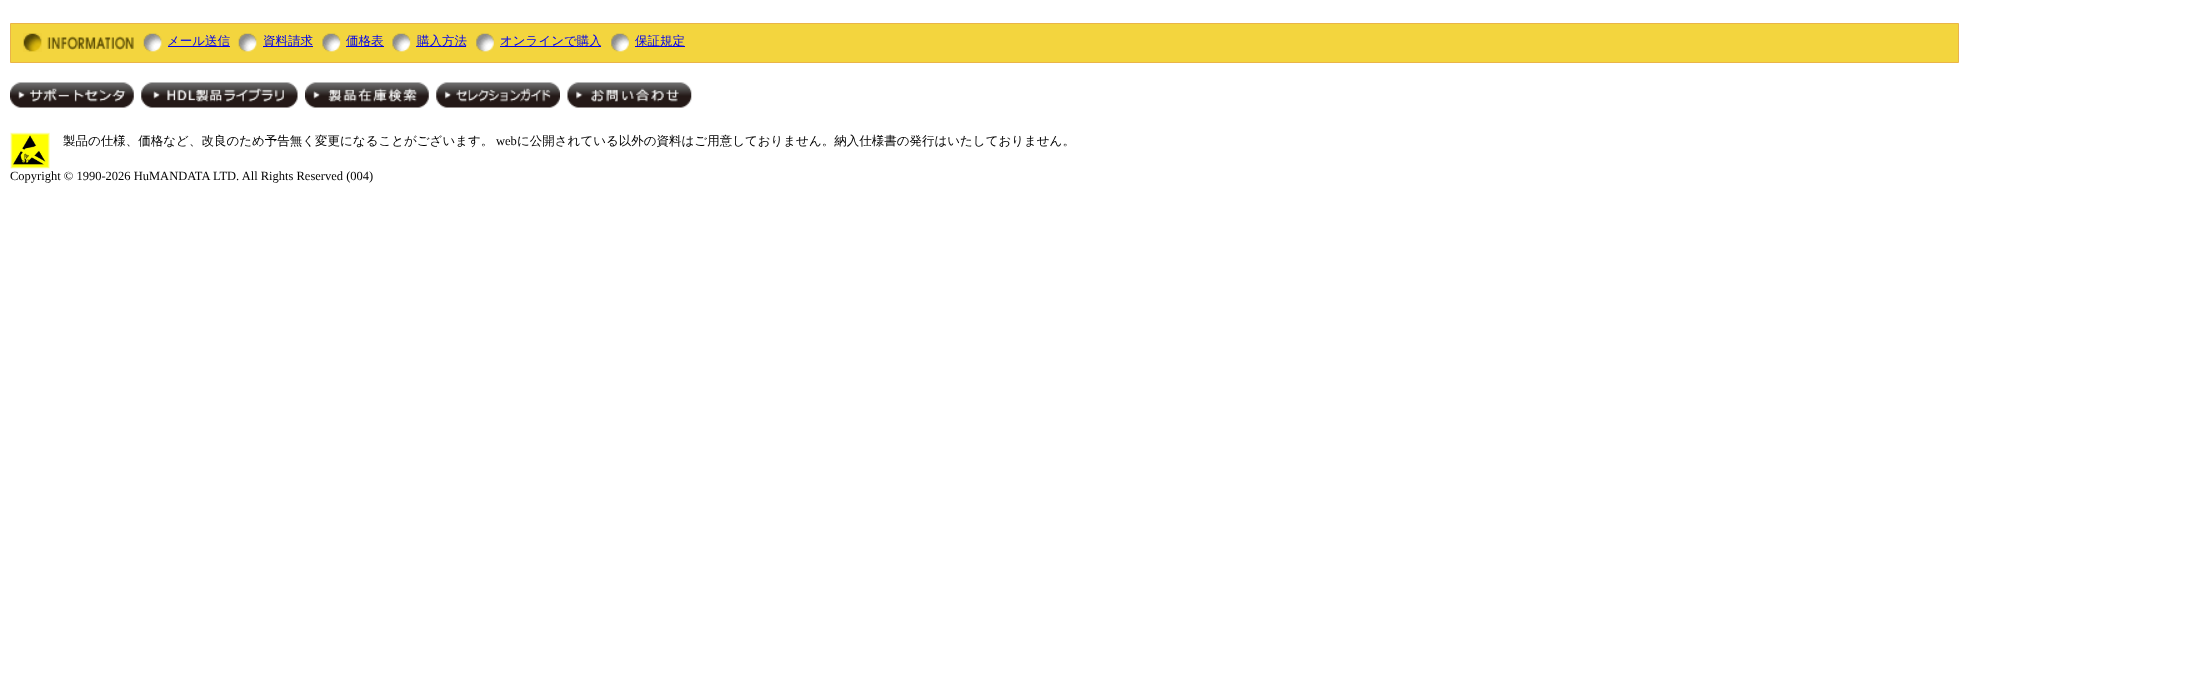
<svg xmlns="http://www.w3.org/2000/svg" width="2185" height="697">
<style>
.a{font:500 12.5px WenQuanYi Zen Hei;fill:#00e}
.b{font:500 12.5px WenQuanYi Zen Hei;fill:#000}
.c{font:12.5px Liberation Serif;fill:#000}
</style>
<rect width="100%" height="100%" fill="#fff"/>
<path fill="#f3d53e" stroke="#eab448" d="M10.5 23.5h1948v39H10.5z"/>
<image href="1.png" x="23" y="33" width="19" height="19"/>
<image href="2.png" x="47" y="36" width="87" height="14"/>
<image href="3.png" x="143" y="33" width="19" height="19"/>
<path fill="#00e" d="M168 46h62v1H168z"/>
<image href="3.png" x="238" y="33" width="19" height="19"/>
<path fill="#00e" d="M263 46h50v1H263z"/>
<image href="4.png" x="322" y="33" width="19" height="19"/>
<path fill="#00e" d="M346 46h38v1H346z"/>
<image href="4.png" x="392" y="33" width="19" height="19"/>
<path fill="#00e" d="M416 46h50v1H416z"/>
<image href="5.png" x="476" y="33" width="18" height="19"/>
<path fill="#00e" d="M500 46h101v1H500z"/>
<image href="6.png" x="611" y="33" width="18" height="19"/>
<path fill="#00e" d="M635 46h50v1H635z"/>
<image href="7.png" x="10" y="82" width="124" height="26"/>
<image href="8.png" x="141" y="82" width="157" height="26"/>
<image href="9.png" x="305" y="82" width="124" height="26"/>
<image href="10.png" x="436" y="82" width="124" height="26"/>
<image href="11.png" x="567" y="82" width="125" height="26"/>
<image href="12.png" x="10" y="132" width="40" height="37"/>
<text class="a" x="167" y="45">メール送信</text>
<text class="a" x="263" y="45">資料請求</text>
<text class="a" x="346" y="45">価格表</text>
<text class="a" x="417" y="45">購入方法</text>
<text class="a" x="500" y="45">オンラインで購入</text>
<text class="a" x="635" y="45">保証規定</text>
<text class="b" x="63" y="145">製品の仕様、価格など、改良のため予告無く変更になることがございます。</text>
<text class="c" x="496" y="145">web</text>
<text class="b" x="517" y="145">に公開されている以外の資料はご用意しておりません。納入仕様書の発行はいたしておりません。</text>
<text class="c" x="10" y="180">Copyright © 1990-2026 HuMANDATA LTD. All Rights Reserved (004)</text>
</svg>
